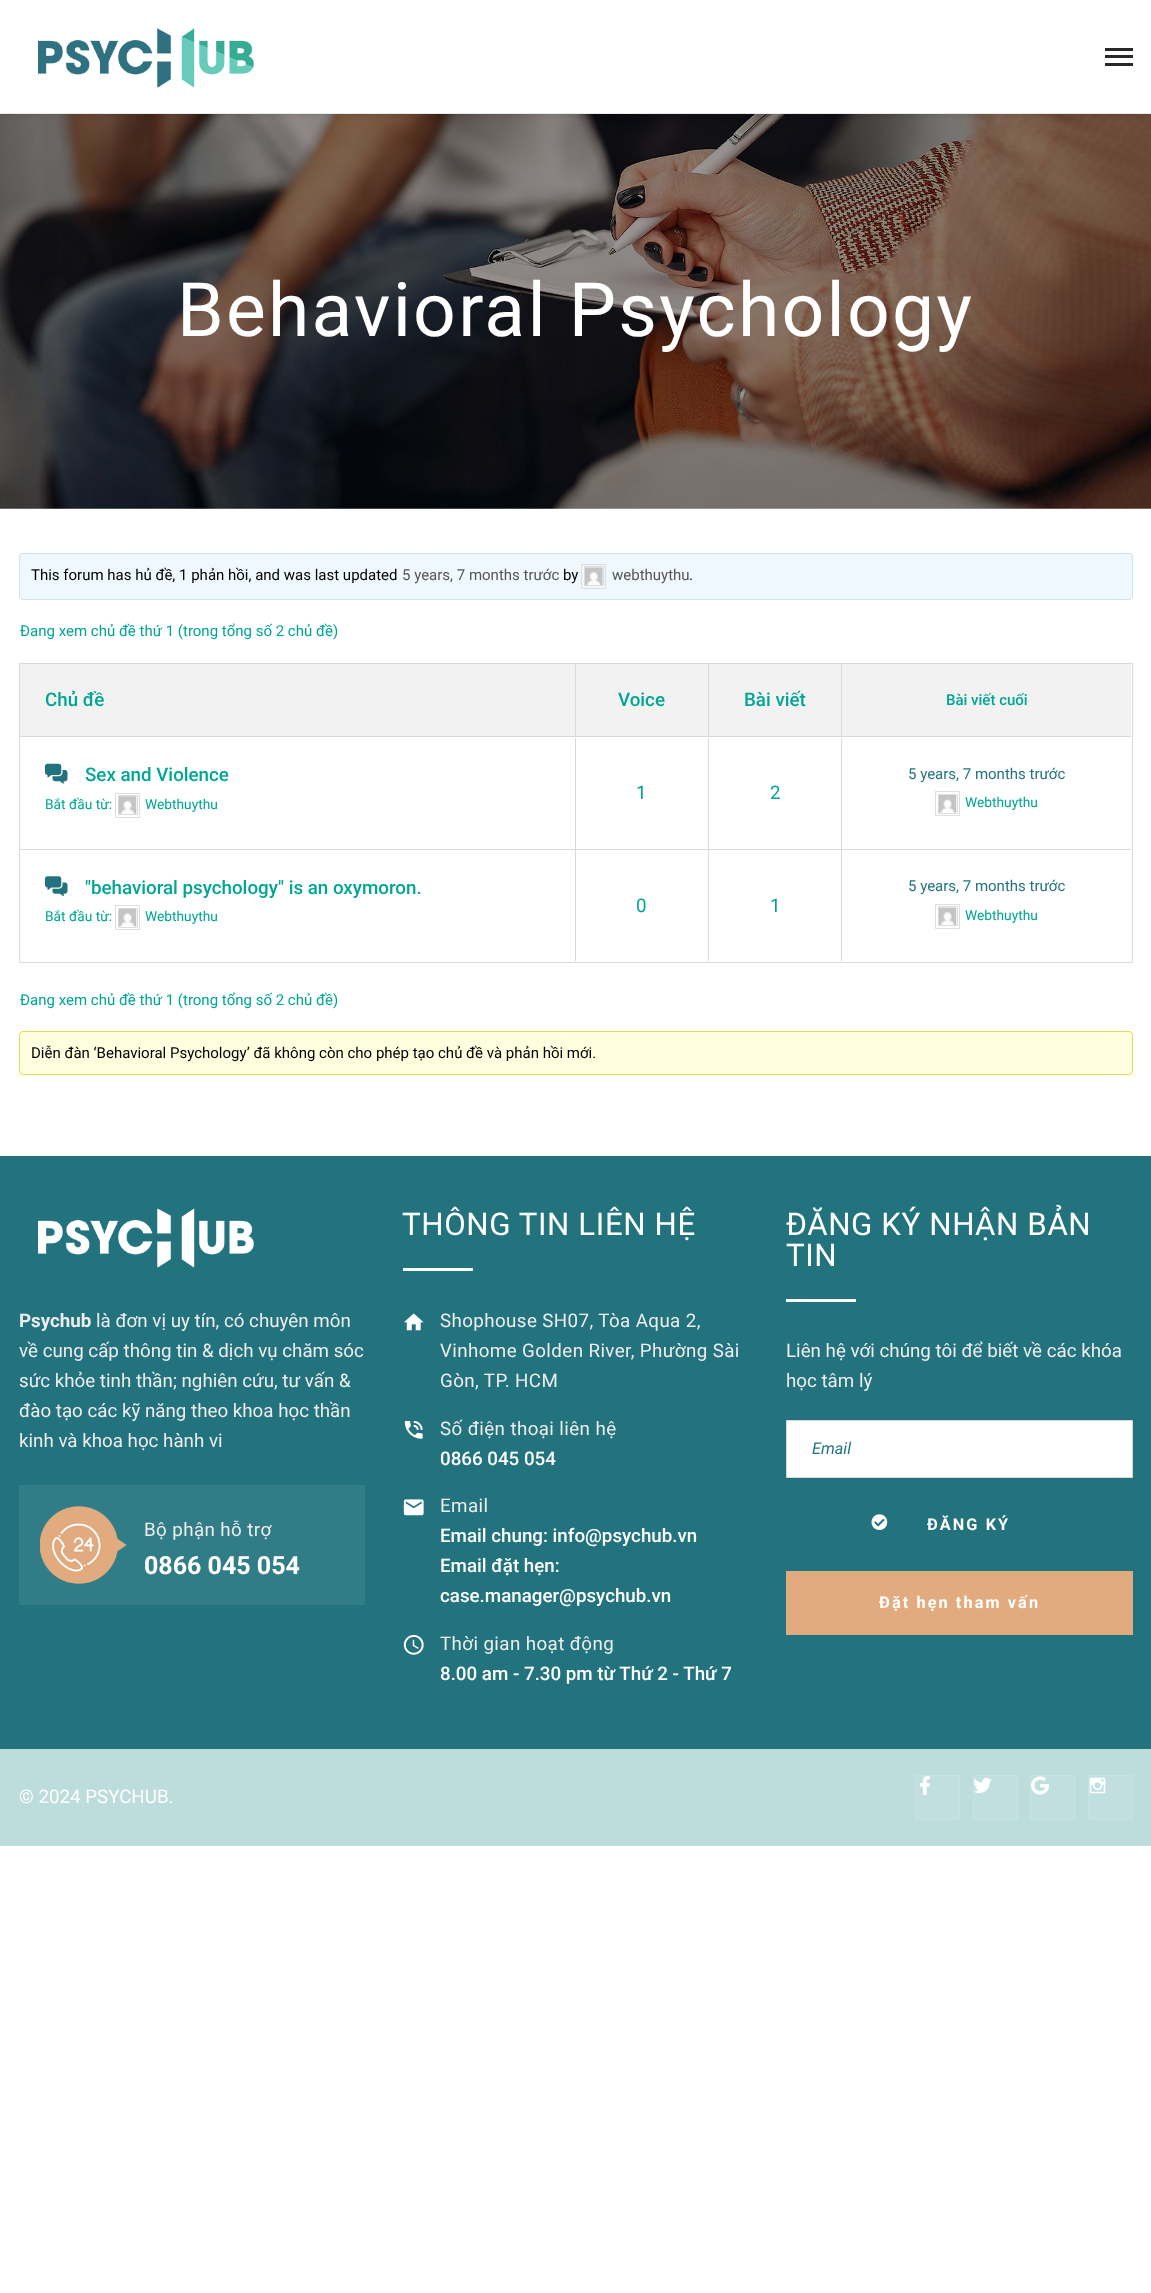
<svg xmlns="http://www.w3.org/2000/svg" width="1151" height="2293">
<style>
.a{font:75px Roboto;letter-spacing:2.25px;fill:#fff}
.b{font:15px Roboto;fill:#000}
.c{font:15px Roboto;fill:#555}
.d{font:15px Roboto;fill:#00a695}
.e{font:500 18.75px Roboto;fill:#00a695}
.f{font:500 15px Roboto;fill:#00a695}
.g{font:13.75px Roboto;fill:#00a695}
.h{font:18.75px Roboto;fill:#00a695}
.i{font:15px Roboto;fill:#22737e}
.j{font:bold 18.75px Roboto;fill:#ededed}
.k{font:18.75px Roboto;fill:#ededed}
.l{font:18.75px Roboto;letter-spacing:0.4px;fill:#ededed}
.m{font:bold 25px Roboto;fill:#fff}
.n{font:31.25px Roboto;letter-spacing:0.6px;fill:#fff}
.o{font:500 18.75px Roboto;fill:#fff}
.p{font:italic 16.25px Roboto;fill:#22737e}
.q{font:bold 16.25px Roboto;letter-spacing:2.1px;fill:#fff}
.r{font:18.75px Roboto;fill:#fff}
</style>
<rect width="100%" height="100%" fill="#fff"/>
<image href="2.png" x="0" y="114" width="1151" height="395"/>
<path fill="#00000026" filter="blur(3px)" d="M0 0h1151v114H0z"/>
<path fill="#fff" d="M0 0h1151v113H0z"/>
<path fill="#ebebeb" d="M0 113h1151v1H0z"/>
<image href="1.png" x="38" y="28" width="216" height="60"/>
<path fill="#282828" d="M1105 48h28v3H1105z"/>
<path fill="#282828" d="M1105 55h28v3H1105z"/>
<path fill="#282828" d="M1105 63h28v3H1105z"/>
<rect fill="#f0f8ff" stroke="#cee1ef" x="19.5" y="553.5" width="1113" height="46" rx="3.5"/>
<path fill="none" stroke="#ddd" d="M581.5 564.5h24v24H581.5z"/>
<path fill="none" stroke="#ddd" d="M584.5 566.5h19v19H584.5z"/>
<image href="3.png" x="585" y="567" width="18" height="18"/>
<path fill="none" stroke="#d9d9d9" d="M19.5 663.5h1113v299H19.5z"/>
<path fill="#f2f2f2" d="M20 664h1111v72H20z"/>
<path fill="#d9d9d9" d="M575 664h1v72H575z"/>
<path fill="#d9d9d9" d="M708 664h1v72H708z"/>
<path fill="#d9d9d9" d="M841 664h1v72H841z"/>
<path fill="#d9d9d9" d="M20 736h1111v1H20z"/>
<path fill="#d9d9d9" d="M575 738h1v111H575z"/>
<image href="4.png" x="45" y="763" width="23" height="21"/>
<path fill="none" stroke="#ddd" d="M115.5 793.5h24v24H115.5z"/>
<path fill="none" stroke="#ddd" d="M118.5 795.5h19v19H118.5z"/>
<image href="5.png" x="118" y="796" width="19" height="18"/>
<path fill="#d9d9d9" d="M708 738h1v111H708z"/>
<path fill="#d9d9d9" d="M841 738h1v111H841z"/>
<path fill="none" stroke="#ddd" d="M935.5 791.5h24v24H935.5z"/>
<path fill="none" stroke="#ddd" d="M938.5 794.5h19v19H938.5z"/>
<image href="6.png" x="938" y="795" width="19" height="18"/>
<path fill="#d9d9d9" d="M20 849h1111v1H20z"/>
<path fill="#d9d9d9" d="M575 850h1v111H575z"/>
<image href="7.png" x="45" y="876" width="23" height="21"/>
<path fill="none" stroke="#ddd" d="M115.5 905.5h24v24H115.5z"/>
<path fill="none" stroke="#ddd" d="M118.5 908.5h19v19H118.5z"/>
<image href="8.png" x="118" y="908" width="19" height="19"/>
<path fill="#d9d9d9" d="M708 850h1v111H708z"/>
<path fill="#d9d9d9" d="M841 850h1v111H841z"/>
<path fill="none" stroke="#ddd" d="M935.5 904.5h24v24H935.5z"/>
<path fill="none" stroke="#ddd" d="M938.5 906.5h19v19H938.5z"/>
<image href="9.png" x="938" y="907" width="19" height="18"/>
<rect fill="#ffffe0" stroke="#e6db55" x="19.5" y="1031.5" width="1113" height="43" rx="3.5"/>
<path fill="#22737e" d="M0 1156h1151v593H0z"/>
<image href="10.png" x="38" y="1208" width="216" height="60"/>
<path fill="#317d87" d="M19 1485h346v120H19z"/>
<image href="11.png" x="40" y="1506" width="87" height="78"/>
<path fill="#fff" d="M403 1268h70v3H403z"/>
<image href="12.png" x="404" y="1313" width="20" height="18"/>
<image href="13.png" x="404" y="1420" width="19" height="19"/>
<image href="14.png" x="403" y="1499" width="21" height="17"/>
<image href="15.png" x="403" y="1635" width="21" height="20"/>
<path fill="#fff" d="M786 1299h70v3H786z"/>
<path fill="#fff" stroke="#d8d8d8" d="M786.5 1420.5h346v57H786.5z"/>
<image href="16.png" x="871" y="1514" width="17" height="16"/>
<path fill="#e2ab7f" d="M786 1571h347v64H786z"/>
<path fill="#bcdddb" d="M0 1749h1151v97H0z"/>
<path fill="#c1dfde" stroke="#c7e2e1" d="M915.5 1775.5h44v44H915.5z"/>
<image href="17.png" x="920" y="1776" width="10" height="19"/>
<path fill="#c1dfde" stroke="#c7e2e1" d="M973.5 1775.5h44v44H973.5z"/>
<image href="18.png" x="973" y="1777" width="19" height="16"/>
<path fill="#c1dfde" stroke="#c7e2e1" d="M1030.5 1775.5h44v44H1030.5z"/>
<image href="19.png" x="1031" y="1776" width="18" height="19"/>
<path fill="#c1dfde" stroke="#c7e2e1" d="M1088.5 1775.5h44v44H1088.5z"/>
<image href="20.png" x="1089" y="1777" width="17" height="17"/>
<text class="a" x="177" y="336">Behavioral Psychology</text>
<text class="b" x="31" y="580">This forum has hủ đề, 1 phản hồi, and was last updated</text>
<text class="c" x="402" y="580">5 years, 7 months trước</text>
<text class="b" x="563" y="580">by</text>
<text class="c" x="612" y="580">webthuythu</text>
<text class="b" x="689" y="580">.</text>
<text class="d" x="20" y="636">Đang xem chủ đề thứ 1 (trong tổng số 2 chủ đề)</text>
<text class="e" x="45" y="706">Chủ đề</text>
<text class="e" x="618" y="706">Voice</text>
<text class="e" x="744" y="706">Bài viết</text>
<text class="f" x="946" y="705">Bài viết cuối</text>
<text class="e" x="85" y="781">Sex and Violence</text>
<text class="g" x="45" y="809">Bắt đầu từ:</text>
<text class="g" x="145" y="809">Webthuythu</text>
<text class="h" x="636" y="799">1</text>
<text class="h" x="770" y="799">2</text>
<text class="i" x="908" y="779">5 years, 7 months trước</text>
<text class="g" x="965" y="807">Webthuythu</text>
<text class="e" x="85" y="894">"behavioral psychology" is an oxymoron.</text>
<text class="g" x="45" y="921">Bắt đầu từ:</text>
<text class="g" x="145" y="921">Webthuythu</text>
<text class="h" x="636" y="912">0</text>
<text class="h" x="770" y="912">1</text>
<text class="i" x="908" y="891">5 years, 7 months trước</text>
<text class="g" x="965" y="920">Webthuythu</text>
<text class="d" x="20" y="1005">Đang xem chủ đề thứ 1 (trong tổng số 2 chủ đề)</text>
<text class="b" x="31" y="1058">Diễn đàn ‘Behavioral Psychology’ đã không còn cho phép tạo chủ đề và phản hồi mới.</text>
<text class="j" x="19" y="1327">Psychub</text>
<text class="k" x="96" y="1327">là đơn vị uy tín, có chuyên môn</text>
<text class="k" x="19" y="1357">về cung cấp thông tin &amp; dịch vụ chăm sóc</text>
<text class="k" x="19" y="1387">sức khỏe tinh thần; nghiên cứu, tư vấn &amp;</text>
<text class="k" x="19" y="1417">đào tạo các kỹ năng theo khoa học thần</text>
<text class="k" x="19" y="1447">kinh và khoa học hành vi</text>
<text class="l" x="144" y="1536">Bộ phận hỗ trợ</text>
<text class="m" x="144" y="1574">0866 045 054</text>
<text class="n" x="402" y="1235">THÔNG TIN LIÊN HỆ</text>
<text class="l" x="440" y="1327">Shophouse SH07, Tòa Aqua 2,</text>
<text class="l" x="440" y="1357">Vinhome Golden River, Phường Sài</text>
<text class="l" x="440" y="1387">Gòn, TP. HCM</text>
<text class="l" x="440" y="1435">Số điện thoại liên hệ</text>
<text class="o" x="440" y="1465">0866 045 054</text>
<text class="l" x="440" y="1512">Email</text>
<text class="o" x="440" y="1542">Email chung: info@psychub.vn</text>
<text class="o" x="440" y="1572">Email đặt hẹn:</text>
<text class="o" x="440" y="1602">case.manager@psychub.vn</text>
<text class="l" x="440" y="1650">Thời gian hoạt động</text>
<text class="o" x="440" y="1680">8.00 am - 7.30 pm từ Thứ 2 - Thứ 7</text>
<text class="n" x="786" y="1235">ĐĂNG KÝ NHẬN BẢN</text>
<text class="n" x="786" y="1266">TIN</text>
<text class="k" x="786" y="1357">Liên hệ với chúng tôi để biết về các khóa</text>
<text class="k" x="786" y="1387">học tâm lý</text>
<text class="p" x="812" y="1454">Email</text>
<text class="q" x="927" y="1530">ĐĂNG KÝ</text>
<text class="q" x="879" y="1608">Đặt hẹn tham vấn</text>
<text class="r" x="19" y="1803">© 2024 PSYCHUB.</text>
</svg>
